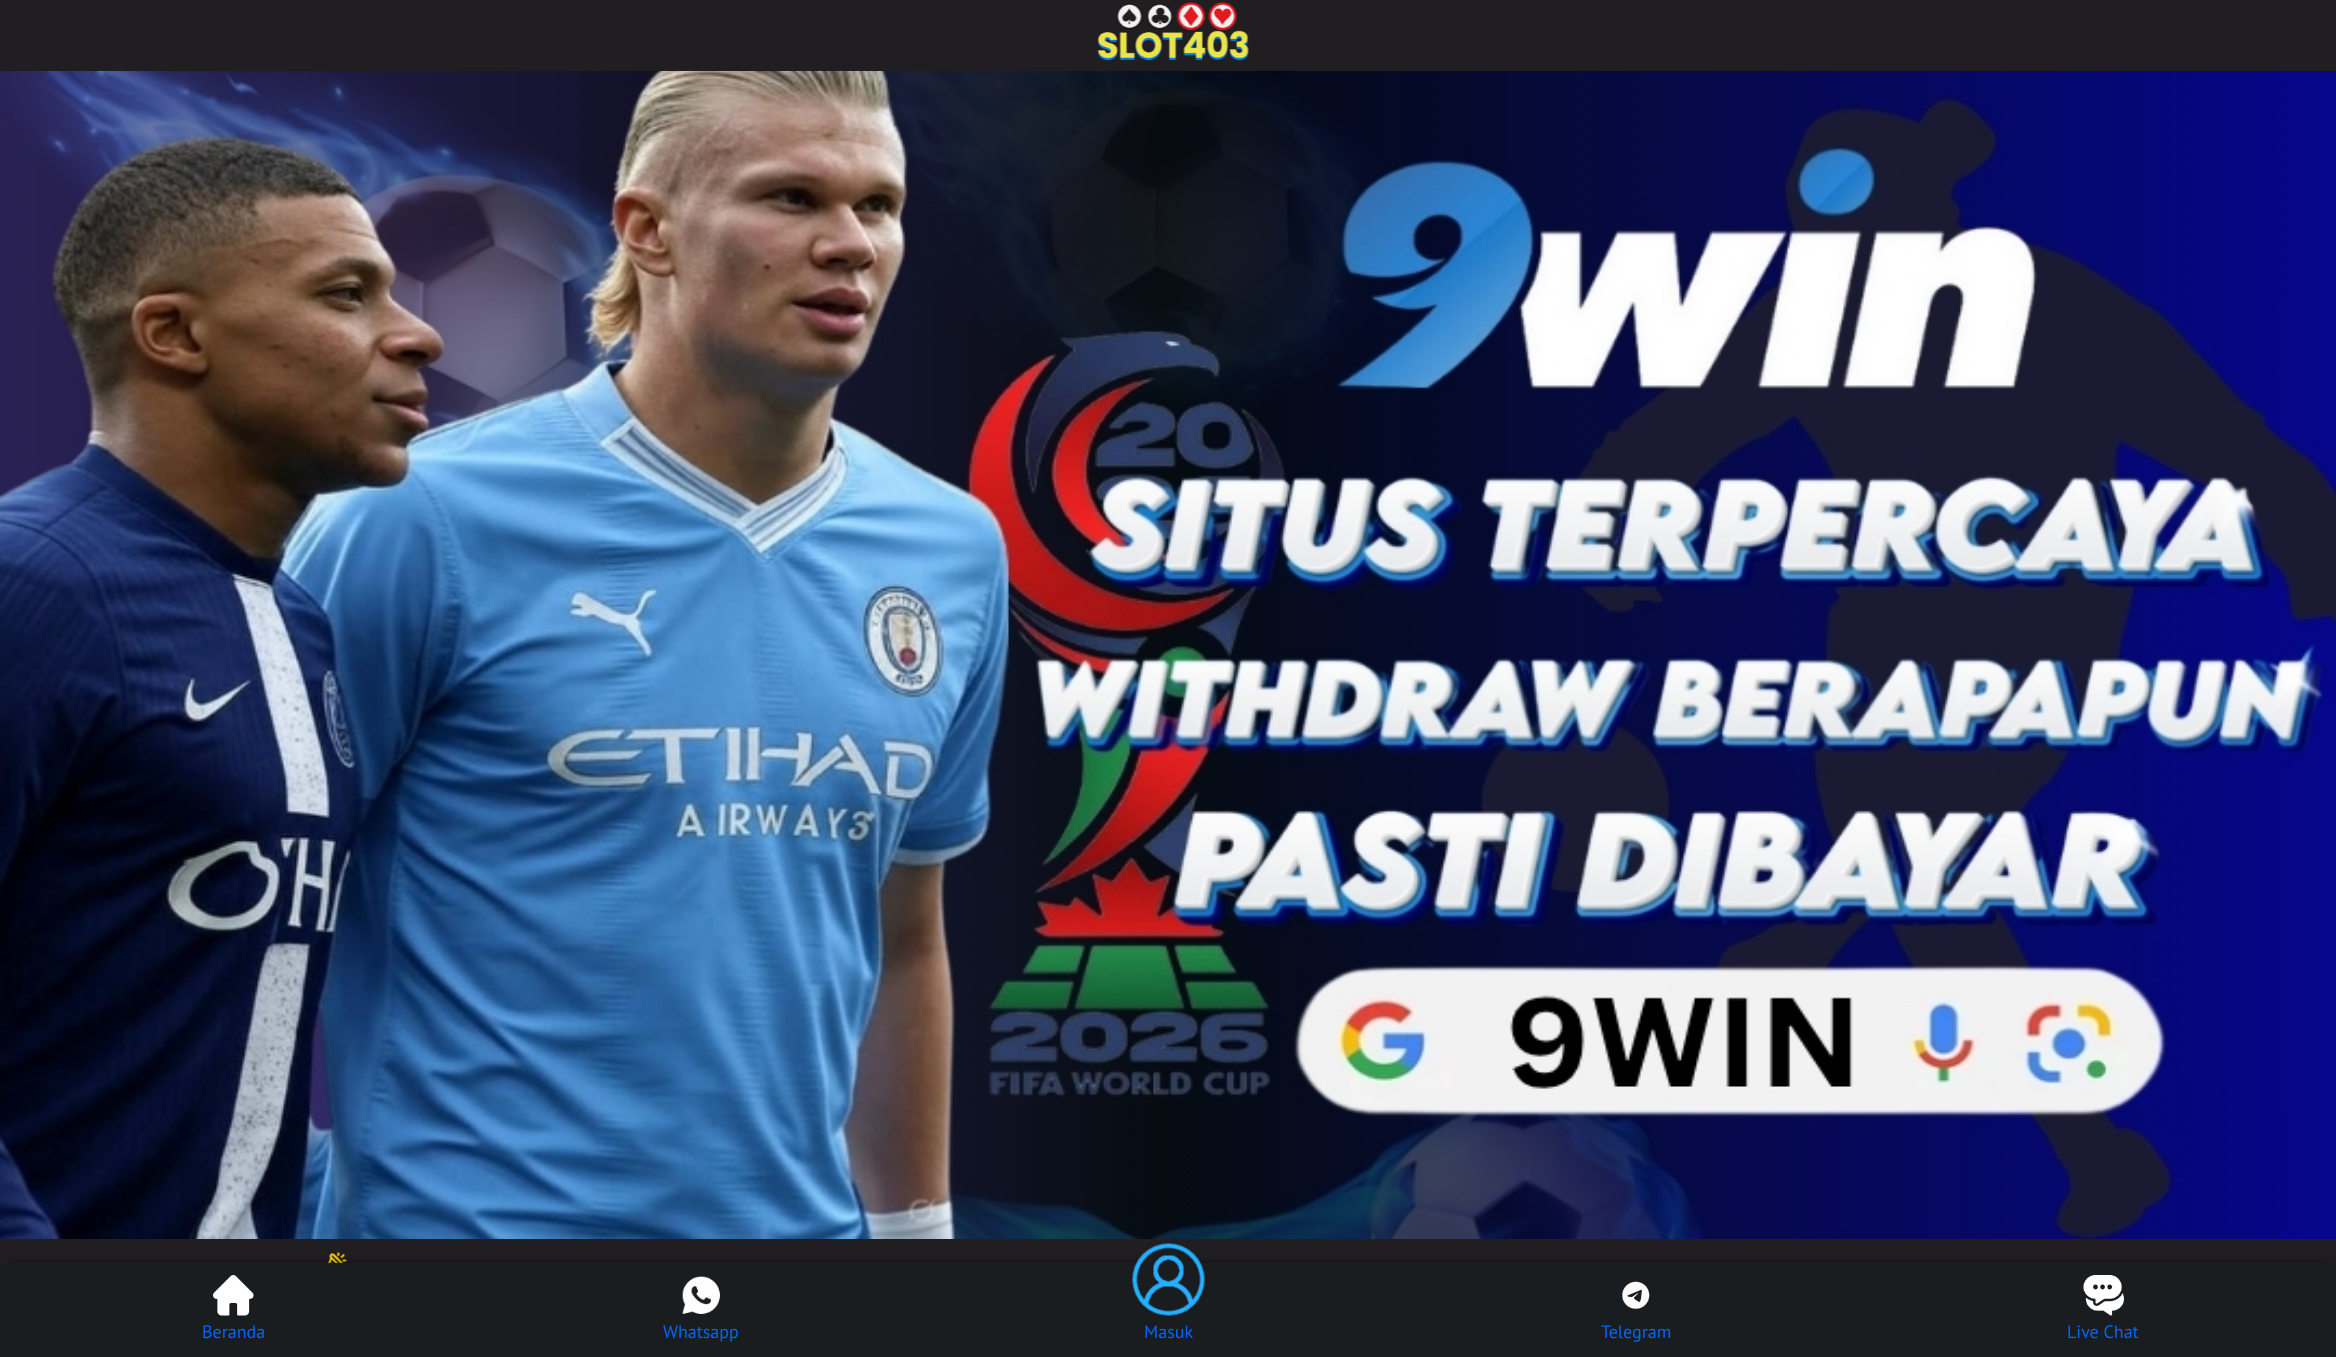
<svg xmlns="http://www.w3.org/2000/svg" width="2336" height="1357">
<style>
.a{font:18px PT Sans;fill:#06f}
</style>
<rect width="100%" height="100%" fill="#201e21"/>
<image href="2.png" x="0" y="70" width="2336" height="1169"/>
<path fill="#201e21f2" d="M0 70h2336v1H0z"/>
<image href="1.png" x="1097" y="2" width="152" height="59"/>
<image href="3.png" x="327" y="1252" width="20" height="11"/>
<path fill="#00000080" filter="blur(4.5px)" d="M9 1263h2319v77H9z"/>
<path fill="#1a1d1f" d="M0 1263h2336v94H0z"/>
<image href="4.png" x="213" y="1275" width="41" height="41"/>
<image href="5.png" x="682" y="1276" width="38" height="38"/>
<circle fill="#1a1d1f" cx="1169" cy="1280" r="36"/>
<image href="6.png" x="1132" y="1243" width="73" height="73"/>
<image href="7.png" x="1622" y="1281" width="28" height="28"/>
<image href="8.png" x="2083" y="1275" width="41" height="41"/>
<text class="a" x="202" y="1338">Beranda</text>
<text class="a" x="663" y="1338">Whatsapp</text>
<text class="a" x="1144" y="1338">Masuk</text>
<text class="a" x="1601" y="1338">Telegram</text>
<text class="a" x="2067" y="1338">Live Chat</text>
</svg>
